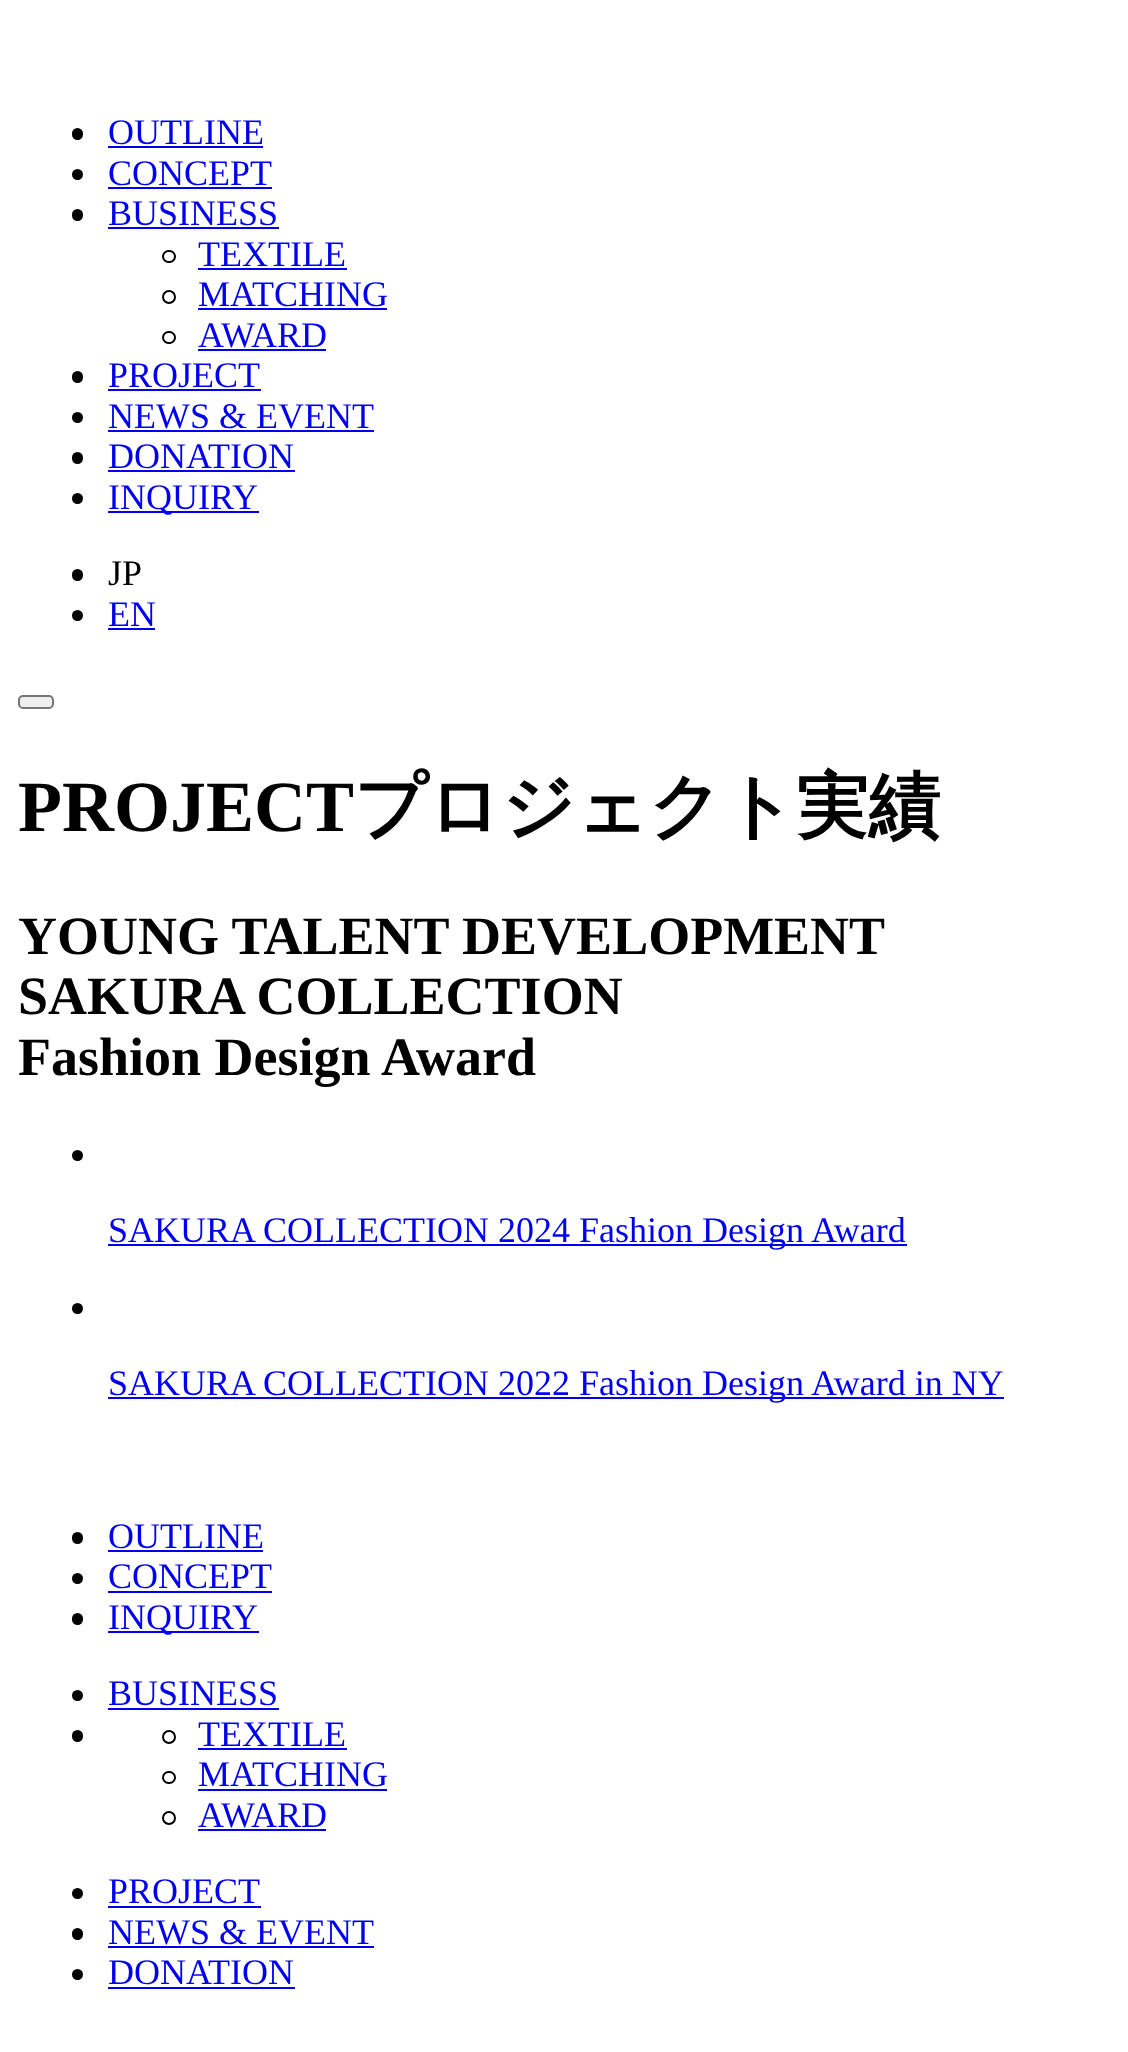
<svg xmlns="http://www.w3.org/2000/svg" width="1128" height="2052">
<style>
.a{font:36px Liberation Serif;fill:#00e}
.b{font:36px Liberation Serif;fill:#000}
.c{font:bold 72px Liberation Serif;fill:#000}
.d{font:bold 72px WenQuanYi Zen Hei;fill:#000}
.e{font:bold 54px Liberation Serif;fill:#000}
</style>
<rect width="100%" height="100%" fill="#fff"/>
<rect fill="#000" x="72" y="128" width="11" height="12" rx="5.5"/>
<path fill="#00e" d="M108 146h155v2H108z"/>
<circle fill="#000" cx="77.5" cy="174.5" r="5.5"/>
<path fill="#00e" d="M108 187h164v2H108z"/>
<rect fill="#000" x="72" y="209" width="11" height="12" rx="5.5"/>
<path fill="#00e" d="M108 227h171v2H108z"/>
<rect fill="none" stroke="#000" stroke-width="2" x="163" y="251" width="12" height="11" rx="5.5"/>
<path fill="#00e" d="M198 268h149v2H198z"/>
<circle fill="none" stroke="#000" stroke-width="2" cx="169" cy="297" r="6"/>
<path fill="#00e" d="M198 308h189v2H198z"/>
<rect fill="none" stroke="#000" stroke-width="2" x="163" y="332" width="12" height="11" rx="5.5"/>
<path fill="#00e" d="M198 349h128v2H198z"/>
<rect fill="#000" x="72" y="371" width="11" height="12" rx="5.5"/>
<path fill="#00e" d="M108 389h153v2H108z"/>
<circle fill="#000" cx="77.5" cy="417.5" r="5.5"/>
<path fill="#00e" d="M108 430h266v2H108z"/>
<rect fill="#000" x="72" y="452" width="11" height="12" rx="5.5"/>
<path fill="#00e" d="M108 470h187v2H108z"/>
<circle fill="#000" cx="77.5" cy="498.5" r="5.5"/>
<path fill="#00e" d="M108 511h151v2H108z"/>
<rect fill="#000" x="72" y="569" width="11" height="12" rx="5.5"/>
<circle fill="#000" cx="77.5" cy="615.5" r="5.5"/>
<path fill="#00e" d="M108 628h47v2H108z"/>
<rect fill="#efefef" stroke="#767676" stroke-width="2" x="19" y="696" width="34" height="12" rx="4"/>
<circle fill="#000" cx="77.5" cy="1155.5" r="5.5"/>
<path fill="#00e" d="M108 1244h799v2H108z"/>
<circle fill="#000" cx="77.5" cy="1308.5" r="5.5"/>
<path fill="#00e" d="M108 1397h896v2H108z"/>
<rect fill="#000" x="72" y="1532" width="11" height="12" rx="5.5"/>
<path fill="#00e" d="M108 1550h155v2H108z"/>
<circle fill="#000" cx="77.5" cy="1578.5" r="5.5"/>
<path fill="#00e" d="M108 1591h164v2H108z"/>
<rect fill="#000" x="72" y="1613" width="11" height="12" rx="5.5"/>
<path fill="#00e" d="M108 1631h151v2H108z"/>
<circle fill="#000" cx="77.5" cy="1695.5" r="5.5"/>
<path fill="#00e" d="M108 1708h171v2H108z"/>
<rect fill="#000" x="72" y="1730" width="11" height="12" rx="5.5"/>
<circle fill="none" stroke="#000" stroke-width="2" cx="169" cy="1737" r="6"/>
<path fill="#00e" d="M198 1748h149v2H198z"/>
<rect fill="none" stroke="#000" stroke-width="2" x="163" y="1772" width="12" height="11" rx="5.5"/>
<path fill="#00e" d="M198 1789h189v2H198z"/>
<circle fill="none" stroke="#000" stroke-width="2" cx="169" cy="1818" r="6"/>
<path fill="#00e" d="M198 1829h128v2H198z"/>
<circle fill="#000" cx="77.5" cy="1893.5" r="5.5"/>
<path fill="#00e" d="M108 1906h153v2H108z"/>
<rect fill="#000" x="72" y="1928" width="11" height="12" rx="5.5"/>
<path fill="#00e" d="M108 1946h266v2H108z"/>
<circle fill="#000" cx="77.5" cy="1974.5" r="5.5"/>
<path fill="#00e" d="M108 1987h187v2H108z"/>
<text class="a" x="108" y="144">OUTLINE</text>
<text class="a" x="108" y="185">CONCEPT</text>
<text class="a" x="108" y="225">BUSINESS</text>
<text class="a" x="198" y="266">TEXTILE</text>
<text class="a" x="198" y="306">MATCHING</text>
<text class="a" x="198" y="347">AWARD</text>
<text class="a" x="108" y="387">PROJECT</text>
<text class="a" x="108" y="428">NEWS &amp; EVENT</text>
<text class="a" x="108" y="468">DONATION</text>
<text class="a" x="108" y="509">INQUIRY</text>
<text class="b" x="108" y="585">JP</text>
<text class="a" x="108" y="626">EN</text>
<text class="c" x="18" y="831">PROJECT</text>
<text class="d" x="354" y="831">プロジェクト実績</text>
<text class="e" x="18" y="954">YOUNG TALENT DEVELOPMENT</text>
<text class="e" x="18" y="1014">SAKURA COLLECTION</text>
<text class="e" x="18" y="1075">Fashion Design Award</text>
<text class="a" x="108" y="1242">SAKURA COLLECTION 2024 Fashion Design Award</text>
<text class="a" x="108" y="1395">SAKURA COLLECTION 2022 Fashion Design Award in NY</text>
<text class="a" x="108" y="1548">OUTLINE</text>
<text class="a" x="108" y="1588">CONCEPT</text>
<text class="a" x="108" y="1629">INQUIRY</text>
<text class="a" x="108" y="1705">BUSINESS</text>
<text class="a" x="198" y="1746">TEXTILE</text>
<text class="a" x="198" y="1786">MATCHING</text>
<text class="a" x="198" y="1827">AWARD</text>
<text class="a" x="108" y="1903">PROJECT</text>
<text class="a" x="108" y="1944">NEWS &amp; EVENT</text>
<text class="a" x="108" y="1984">DONATION</text>
</svg>
